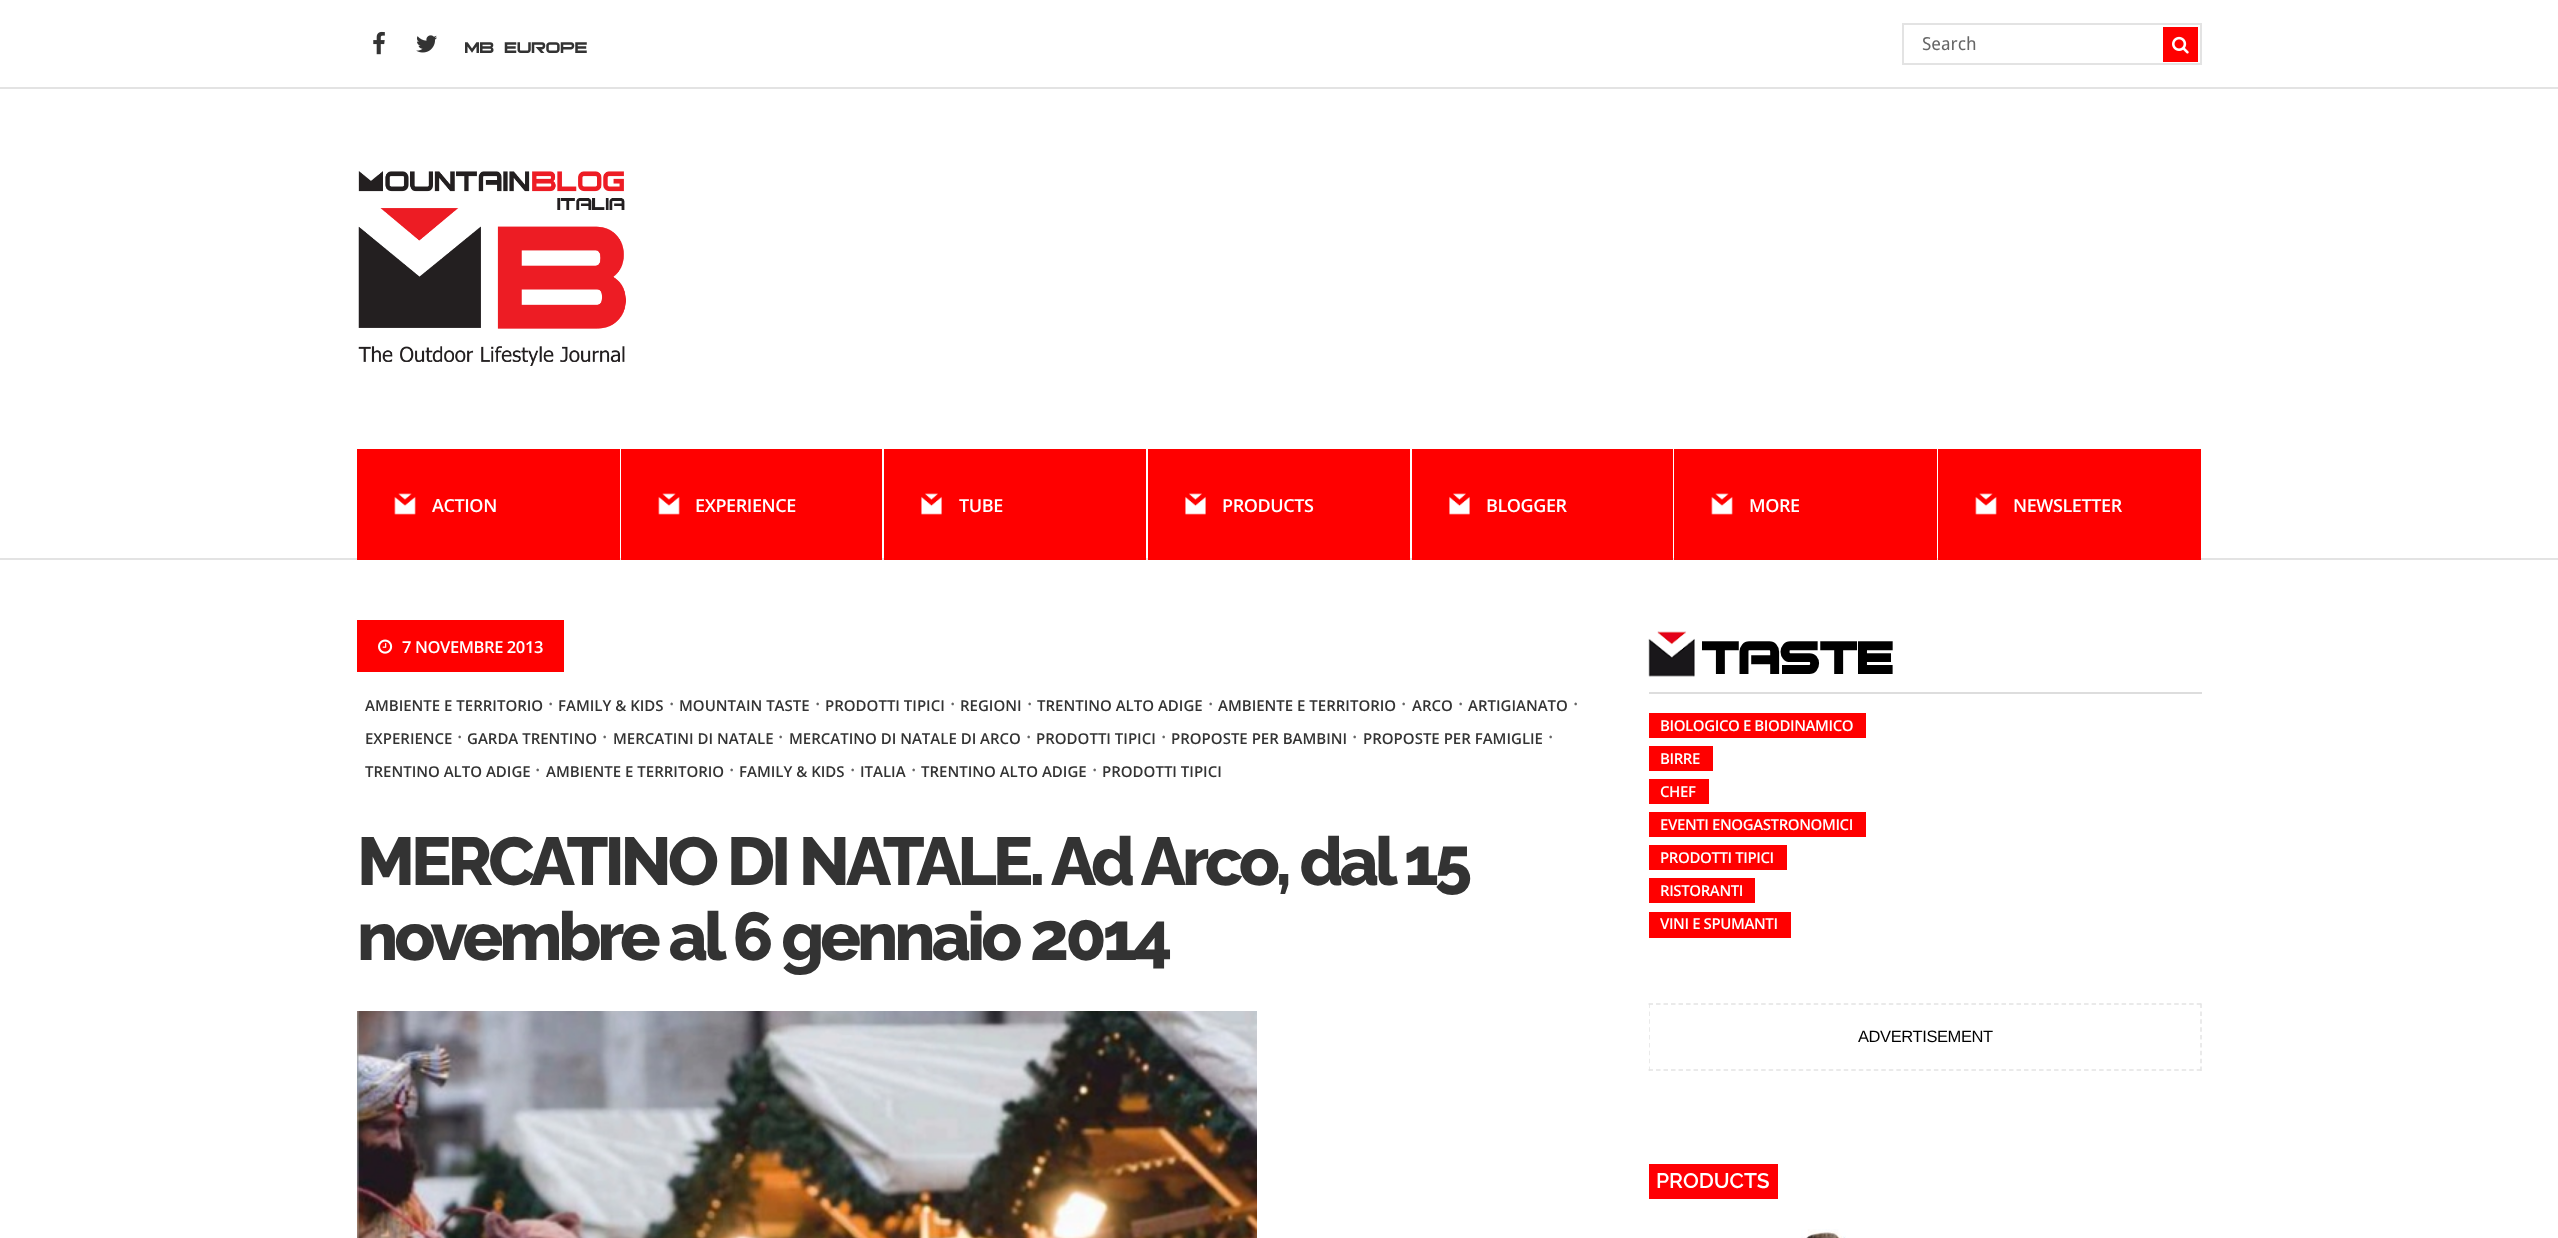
<svg xmlns="http://www.w3.org/2000/svg" width="2558" height="1238">
<style>
.a{font:21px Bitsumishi;fill:#333}
.b{font:18px Droid Sans;fill:#666}
.c{font:600 18px Open Sans;letter-spacing:-0.4px;fill:#fff}
.d{font:600 16.5px Open Sans;letter-spacing:-0.4px;fill:#fff}
.e{font:600 15px Open Sans;fill:#333}
.f{font:20px Droid Sans;fill:#666}
.g{font:800 67.5px Raleway;letter-spacing:-4.05px;fill:#333}
.h{font:bold 60px Bitsumishi;fill:#000}
.i{font:600 15px Open Sans;letter-spacing:-0.4px;fill:#fff}
.j{font:16.5px Liberation Sans;letter-spacing:-0.4px;fill:#000}
.k{font:600 21px Raleway;fill:#fff}
</style>
<defs>
<clipPath id="clip1"><path d="M1649 620h553v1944H1649z"/></clipPath>
</defs>
<rect width="100%" height="100%" fill="#fff"/>
<image href="1.png" x="373" y="31" width="12" height="24"/>
<image href="2.png" x="416" y="35" width="21" height="18"/>
<path fill="none" stroke="#e3e3e3" stroke-width="2" d="M1903 24h298v40H1903z"/>
<path fill="#f00" d="M2163 27h35v35H2163z"/>
<image href="3.png" x="2172" y="36" width="17" height="18"/>
<path fill="#e3e3e3" d="M0 87h2558v2H0z"/>
<path fill="#e3e3e3" d="M0 558h2558v2H0z"/>
<image href="4.png" x="358" y="171" width="268" height="195"/>
<path fill="#f00" d="M357 449h263v111H357z"/>
<image href="5.png" x="394" y="493" width="22" height="22"/>
<path fill="#f00" d="M621 449h261v111H621z"/>
<image href="5.png" x="658" y="493" width="22" height="22"/>
<path fill="#f00" d="M884 449h262v111H884z"/>
<image href="6.png" x="921" y="493" width="21" height="22"/>
<path fill="#f00" d="M1148 449h262v111H1148z"/>
<image href="7.png" x="1185" y="493" width="21" height="22"/>
<path fill="#f00" d="M1412 449h261v111H1412z"/>
<image href="6.png" x="1449" y="493" width="21" height="22"/>
<path fill="#f00" d="M1674 449h263v111H1674z"/>
<image href="5.png" x="1711" y="493" width="22" height="22"/>
<path fill="#f00" d="M1938 449h263v111H1938z"/>
<image href="5.png" x="1975" y="493" width="22" height="22"/>
<path fill="#f00" d="M357 620h207v52H357z"/>
<image href="8.png" x="378" y="639" width="15" height="15"/>
<image href="9.png" x="357" y="1011" width="900" height="227"/>
<image href="10.png" x="1648" y="631" width="47" height="46"/>
<path fill="#ddd" d="M1649 692h553v2H1649z"/>
<path fill="#f00" d="M1649 713h217v25H1649z"/>
<path fill="#f00" d="M1649 746h64v25H1649z"/>
<path fill="#f00" d="M1649 779h60v25H1649z"/>
<path fill="#f00" d="M1649 812h217v25H1649z"/>
<path fill="#f00" d="M1649 845h138v25H1649z"/>
<path fill="#f00" d="M1649 878h106v25H1649z"/>
<path fill="#f00" d="M1649 912h142v26H1649z"/>
<path fill="none" stroke="#e3e3e3" stroke-width="1.5" stroke-dasharray="4.5 3.01" d="M1648.5 1004h553.5"/>
<path fill="none" stroke="#e3e3e3" stroke-width="1.5" stroke-dasharray="4.5 3.38" d="M2201 1003.5v67.5"/>
<path fill="none" stroke="#e3e3e3" stroke-width="1.5" stroke-dasharray="4.5 3.01" d="M1648.5 1070h553.5"/>
<g clip-path="url(#clip1)">
<path fill="none" stroke="#e3e3e3" stroke-width="1.5" stroke-dasharray="4.5 3.38" d="M1649 1003.5v67.5"/>
</g>
<path fill="#ff0004" d="M1649 1164h129v35H1649z"/>
<image href="11.png" x="1801" y="1229" width="45" height="9"/>
<text class="a" x="465" y="53">MB EUROPE</text>
<text class="b" x="1922" y="50">Search</text>
<text class="c" x="432" y="512">ACTION</text>
<text class="c" x="695" y="512">EXPERIENCE</text>
<text class="c" x="959" y="512">TUBE</text>
<text class="c" x="1222" y="512">PRODUCTS</text>
<text class="c" x="1486" y="512">BLOGGER</text>
<text class="c" x="1749" y="512">MORE</text>
<text class="c" x="2013" y="512">NEWSLETTER</text>
<text class="d" x="402" y="653">7 NOVEMBRE 2013</text>
<text class="e" x="365" y="711">AMBIENTE E TERRITORIO</text>
<text class="f" x="548" y="711">·</text>
<text class="e" x="558" y="711">FAMILY &amp; KIDS</text>
<text class="f" x="669" y="711">·</text>
<text class="e" x="679" y="711">MOUNTAIN TASTE</text>
<text class="f" x="815" y="711">·</text>
<text class="e" x="825" y="711">PRODOTTI TIPICI</text>
<text class="f" x="950" y="711">·</text>
<text class="e" x="960" y="711">REGIONI</text>
<text class="f" x="1027" y="711">·</text>
<text class="e" x="1037" y="711">TRENTINO ALTO ADIGE</text>
<text class="f" x="1208" y="711">·</text>
<text class="e" x="1218" y="711">AMBIENTE E TERRITORIO</text>
<text class="f" x="1401" y="711">·</text>
<text class="e" x="1412" y="711">ARCO</text>
<text class="f" x="1458" y="711">·</text>
<text class="e" x="1468" y="711">ARTIGIANATO</text>
<text class="f" x="1573" y="711">·</text>
<text class="e" x="365" y="744">EXPERIENCE</text>
<text class="f" x="457" y="744">·</text>
<text class="e" x="467" y="744">GARDA TRENTINO</text>
<text class="f" x="602" y="744">·</text>
<text class="e" x="613" y="744">MERCATINI DI NATALE</text>
<text class="f" x="778" y="744">·</text>
<text class="e" x="789" y="744">MERCATINO DI NATALE DI ARCO</text>
<text class="f" x="1026" y="744">·</text>
<text class="e" x="1036" y="744">PRODOTTI TIPICI</text>
<text class="f" x="1161" y="744">·</text>
<text class="e" x="1171" y="744">PROPOSTE PER BAMBINI</text>
<text class="f" x="1352" y="744">·</text>
<text class="e" x="1363" y="744">PROPOSTE PER FAMIGLIE</text>
<text class="f" x="1548" y="744">·</text>
<text class="e" x="365" y="777">TRENTINO ALTO ADIGE</text>
<text class="f" x="535" y="777">·</text>
<text class="e" x="546" y="777">AMBIENTE E TERRITORIO</text>
<text class="f" x="729" y="777">·</text>
<text class="e" x="739" y="777">FAMILY &amp; KIDS</text>
<text class="f" x="850" y="777">·</text>
<text class="e" x="860" y="777">ITALIA</text>
<text class="f" x="911" y="777">·</text>
<text class="e" x="921" y="777">TRENTINO ALTO ADIGE</text>
<text class="f" x="1092" y="777">·</text>
<text class="e" x="1102" y="777">PRODOTTI TIPICI</text>
<text class="g" x="357" y="885">MERCATINO DI NATALE. Ad Arco, dal 15</text>
<text class="g" x="357" y="960">novembre al 6 gennaio 2014</text>
<text class="h" x="1702" y="674">TASTE</text>
<text class="i" x="1660" y="731">BIOLOGICO E BIODINAMICO</text>
<text class="i" x="1660" y="764">BIRRE</text>
<text class="i" x="1660" y="797">CHEF</text>
<text class="i" x="1660" y="830">EVENTI ENOGASTRONOMICI</text>
<text class="i" x="1660" y="863">PRODOTTI TIPICI</text>
<text class="i" x="1660" y="896">RISTORANTI</text>
<text class="i" x="1660" y="929">VINI E SPUMANTI</text>
<text class="j" x="1858" y="1042">ADVERTISEMENT</text>
<text class="k" x="1656" y="1188">PRODUCTS</text>
</svg>
